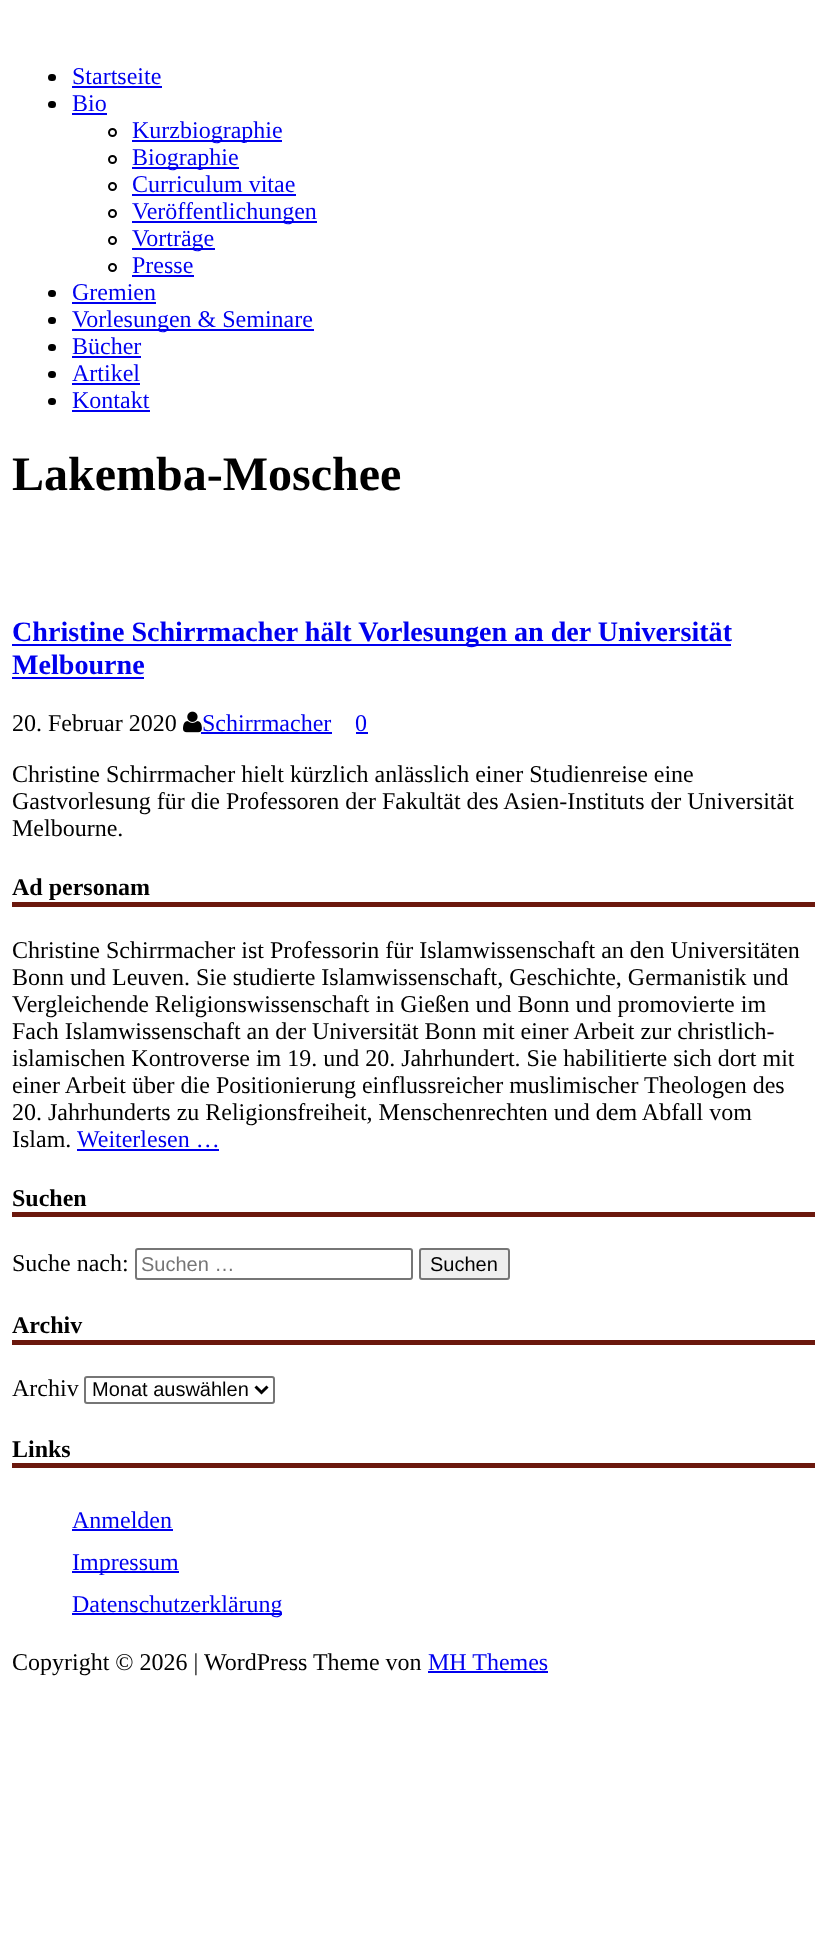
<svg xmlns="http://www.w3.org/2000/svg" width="826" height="1936">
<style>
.a{font:24px Liberation Serif;fill:#00e}
.b{font:bold 48px Liberation Serif;fill:#000}
.c{font:bold 28.1px Liberation Serif;fill:#00e}
.d{font:24px Liberation Serif;fill:#000}
.e{font:bold 24px Liberation Serif;fill:#000}
.f{font:20px Liberation Sans;fill:#757575}
.g{font:20px Liberation Sans;fill:#000}
</style>
<rect width="100%" height="100%" fill="#fff"/>
<rect fill="#000" x="48" y="74" width="8" height="7" rx="3.5"/>
<path fill="#00e" d="M72 86h90v2H72z"/>
<rect fill="#000" x="48" y="101" width="8" height="7" rx="3.5"/>
<path fill="#00e" d="M72 113h35v2H72z"/>
<circle fill="none" stroke="#000" stroke-width="2" cx="112.5" cy="132.5" r="3.5"/>
<path fill="#00e" d="M132 140h150v2H132z"/>
<circle fill="none" stroke="#000" stroke-width="2" cx="112.5" cy="159.5" r="3.5"/>
<path fill="#00e" d="M132 167h107v2H132z"/>
<circle fill="none" stroke="#000" stroke-width="2" cx="112.5" cy="186.5" r="3.5"/>
<path fill="#00e" d="M132 194h164v2H132z"/>
<circle fill="none" stroke="#000" stroke-width="2" cx="112.5" cy="213.5" r="3.5"/>
<path fill="#00e" d="M132 221h185v2H132z"/>
<circle fill="none" stroke="#000" stroke-width="2" cx="112.5" cy="240.5" r="3.5"/>
<path fill="#00e" d="M132 248h83v2H132z"/>
<circle fill="none" stroke="#000" stroke-width="2" cx="112.5" cy="267.5" r="3.5"/>
<path fill="#00e" d="M132 275h62v2H132z"/>
<rect fill="#000" x="48" y="290" width="8" height="7" rx="3.5"/>
<path fill="#00e" d="M72 302h84v2H72z"/>
<rect fill="#000" x="48" y="317" width="8" height="7" rx="3.5"/>
<path fill="#00e" d="M72 329h242v2H72z"/>
<rect fill="#000" x="48" y="344" width="8" height="7" rx="3.5"/>
<path fill="#00e" d="M72 356h69v2H72z"/>
<rect fill="#000" x="48" y="371" width="8" height="7" rx="3.5"/>
<path fill="#00e" d="M72 383h68v2H72z"/>
<rect fill="#000" x="48" y="398" width="8" height="7" rx="3.5"/>
<path fill="#00e" d="M72 410h78v2H72z"/>
<path fill="#00e" d="M12 644h719v2H12z"/>
<path fill="#00e" d="M12 677h132v2H12z"/>
<path fill="#00e" d="M201 732h131v2H201z"/>
<image href="1.png" x="183" y="711" width="19" height="22"/>
<path fill="#00e" d="M356 732h12v2H356z"/>
<path fill="#6b180d" d="M12 902h803v5H12z"/>
<path fill="#00e" d="M77 1149h142v2H77z"/>
<path fill="#6b180d" d="M12 1212h803v5H12z"/>
<rect fill="none" stroke="#767676" stroke-width="2" x="136" y="1249" width="276" height="30" rx="2"/>
<rect fill="#efefef" stroke="#767676" stroke-width="2" x="420" y="1249" width="89" height="30" rx="2"/>
<path fill="#6b180d" d="M12 1340h803v5H12z"/>
<rect fill="none" stroke="#767676" stroke-width="2" x="85" y="1377" width="189" height="26" rx="2"/>
<path fill="none" stroke="#000" stroke-width="3" d="M255.5 1386.5l6 6l6-6"/>
<path fill="#6b180d" d="M12 1463h803v5H12z"/>
<path fill="#00e" d="M72 1529h101v2H72z"/>
<path fill="#00e" d="M72 1571h107v2H72z"/>
<path fill="#00e" d="M72 1613h210v2H72z"/>
<path fill="#00e" d="M428 1671h120v2H428z"/>
<text class="a" x="72" y="84">Startseite</text>
<text class="a" x="72" y="111">Bio</text>
<text class="a" x="132" y="138">Kurzbiographie</text>
<text class="a" x="132" y="165">Biographie</text>
<text class="a" x="132" y="192">Curriculum vitae</text>
<text class="a" x="132" y="219">Veröffentlichungen</text>
<text class="a" x="132" y="246">Vorträge</text>
<text class="a" x="132" y="273">Presse</text>
<text class="a" x="72" y="300">Gremien</text>
<text class="a" x="72" y="327">Vorlesungen &amp; Seminare</text>
<text class="a" x="72" y="354">Bücher</text>
<text class="a" x="72" y="381">Artikel</text>
<text class="a" x="72" y="408">Kontakt</text>
<text class="b" x="12" y="490">Lakemba-Moschee</text>
<text class="c" x="12" y="641">Christine Schirrmacher hält Vorlesungen an der Universität</text>
<text class="c" x="12" y="674">Melbourne</text>
<text class="d" x="12" y="731">20. Februar 2020</text>
<text class="a" x="202" y="731">Schirrmacher</text>
<text class="a" x="355" y="731">0</text>
<text class="d" x="12" y="782">Christine Schirrmacher hielt kürzlich anlässlich einer Studienreise eine</text>
<text class="d" x="12" y="809">Gastvorlesung für die Professoren der Fakultät des Asien-Instituts der Universität</text>
<text class="d" x="12" y="836">Melbourne.</text>
<text class="e" x="12" y="895">Ad personam</text>
<text class="d" x="12" y="958">Christine Schirrmacher ist Professorin für Islamwissenschaft an den Universitäten</text>
<text class="d" x="12" y="985">Bonn und Leuven. Sie studierte Islamwissenschaft, Geschichte, Germanistik und</text>
<text class="d" x="12" y="1012">Vergleichende Religionswissenschaft in Gießen und Bonn und promovierte im</text>
<text class="d" x="12" y="1039">Fach Islamwissenschaft an der Universität Bonn mit einer Arbeit zur christlich-</text>
<text class="d" x="12" y="1066">islamischen Kontroverse im 19. und 20. Jahrhundert. Sie habilitierte sich dort mit</text>
<text class="d" x="12" y="1093">einer Arbeit über die Positionierung einflussreicher muslimischer Theologen des</text>
<text class="d" x="12" y="1120">20. Jahrhunderts zu Religionsfreiheit, Menschenrechten und dem Abfall vom</text>
<text class="d" x="12" y="1147">Islam.</text>
<text class="a" x="77" y="1147">Weiterlesen …</text>
<text class="e" x="12" y="1206">Suchen</text>
<text class="d" x="12" y="1271">Suche nach:</text>
<text class="f" x="141" y="1271">Suchen …</text>
<text class="g" x="430" y="1271">Suchen</text>
<text class="e" x="12" y="1333">Archiv</text>
<text class="d" x="12" y="1396">Archiv</text>
<text class="g" x="92" y="1396">Monat auswählen</text>
<text class="e" x="12" y="1457">Links</text>
<text class="a" x="72" y="1528">Anmelden</text>
<text class="a" x="72" y="1570">Impressum</text>
<text class="a" x="72" y="1612">Datenschutzerklärung</text>
<text class="d" x="12" y="1670">Copyright © 2026 | WordPress Theme von</text>
<text class="a" x="428" y="1670">MH Themes</text>
</svg>
